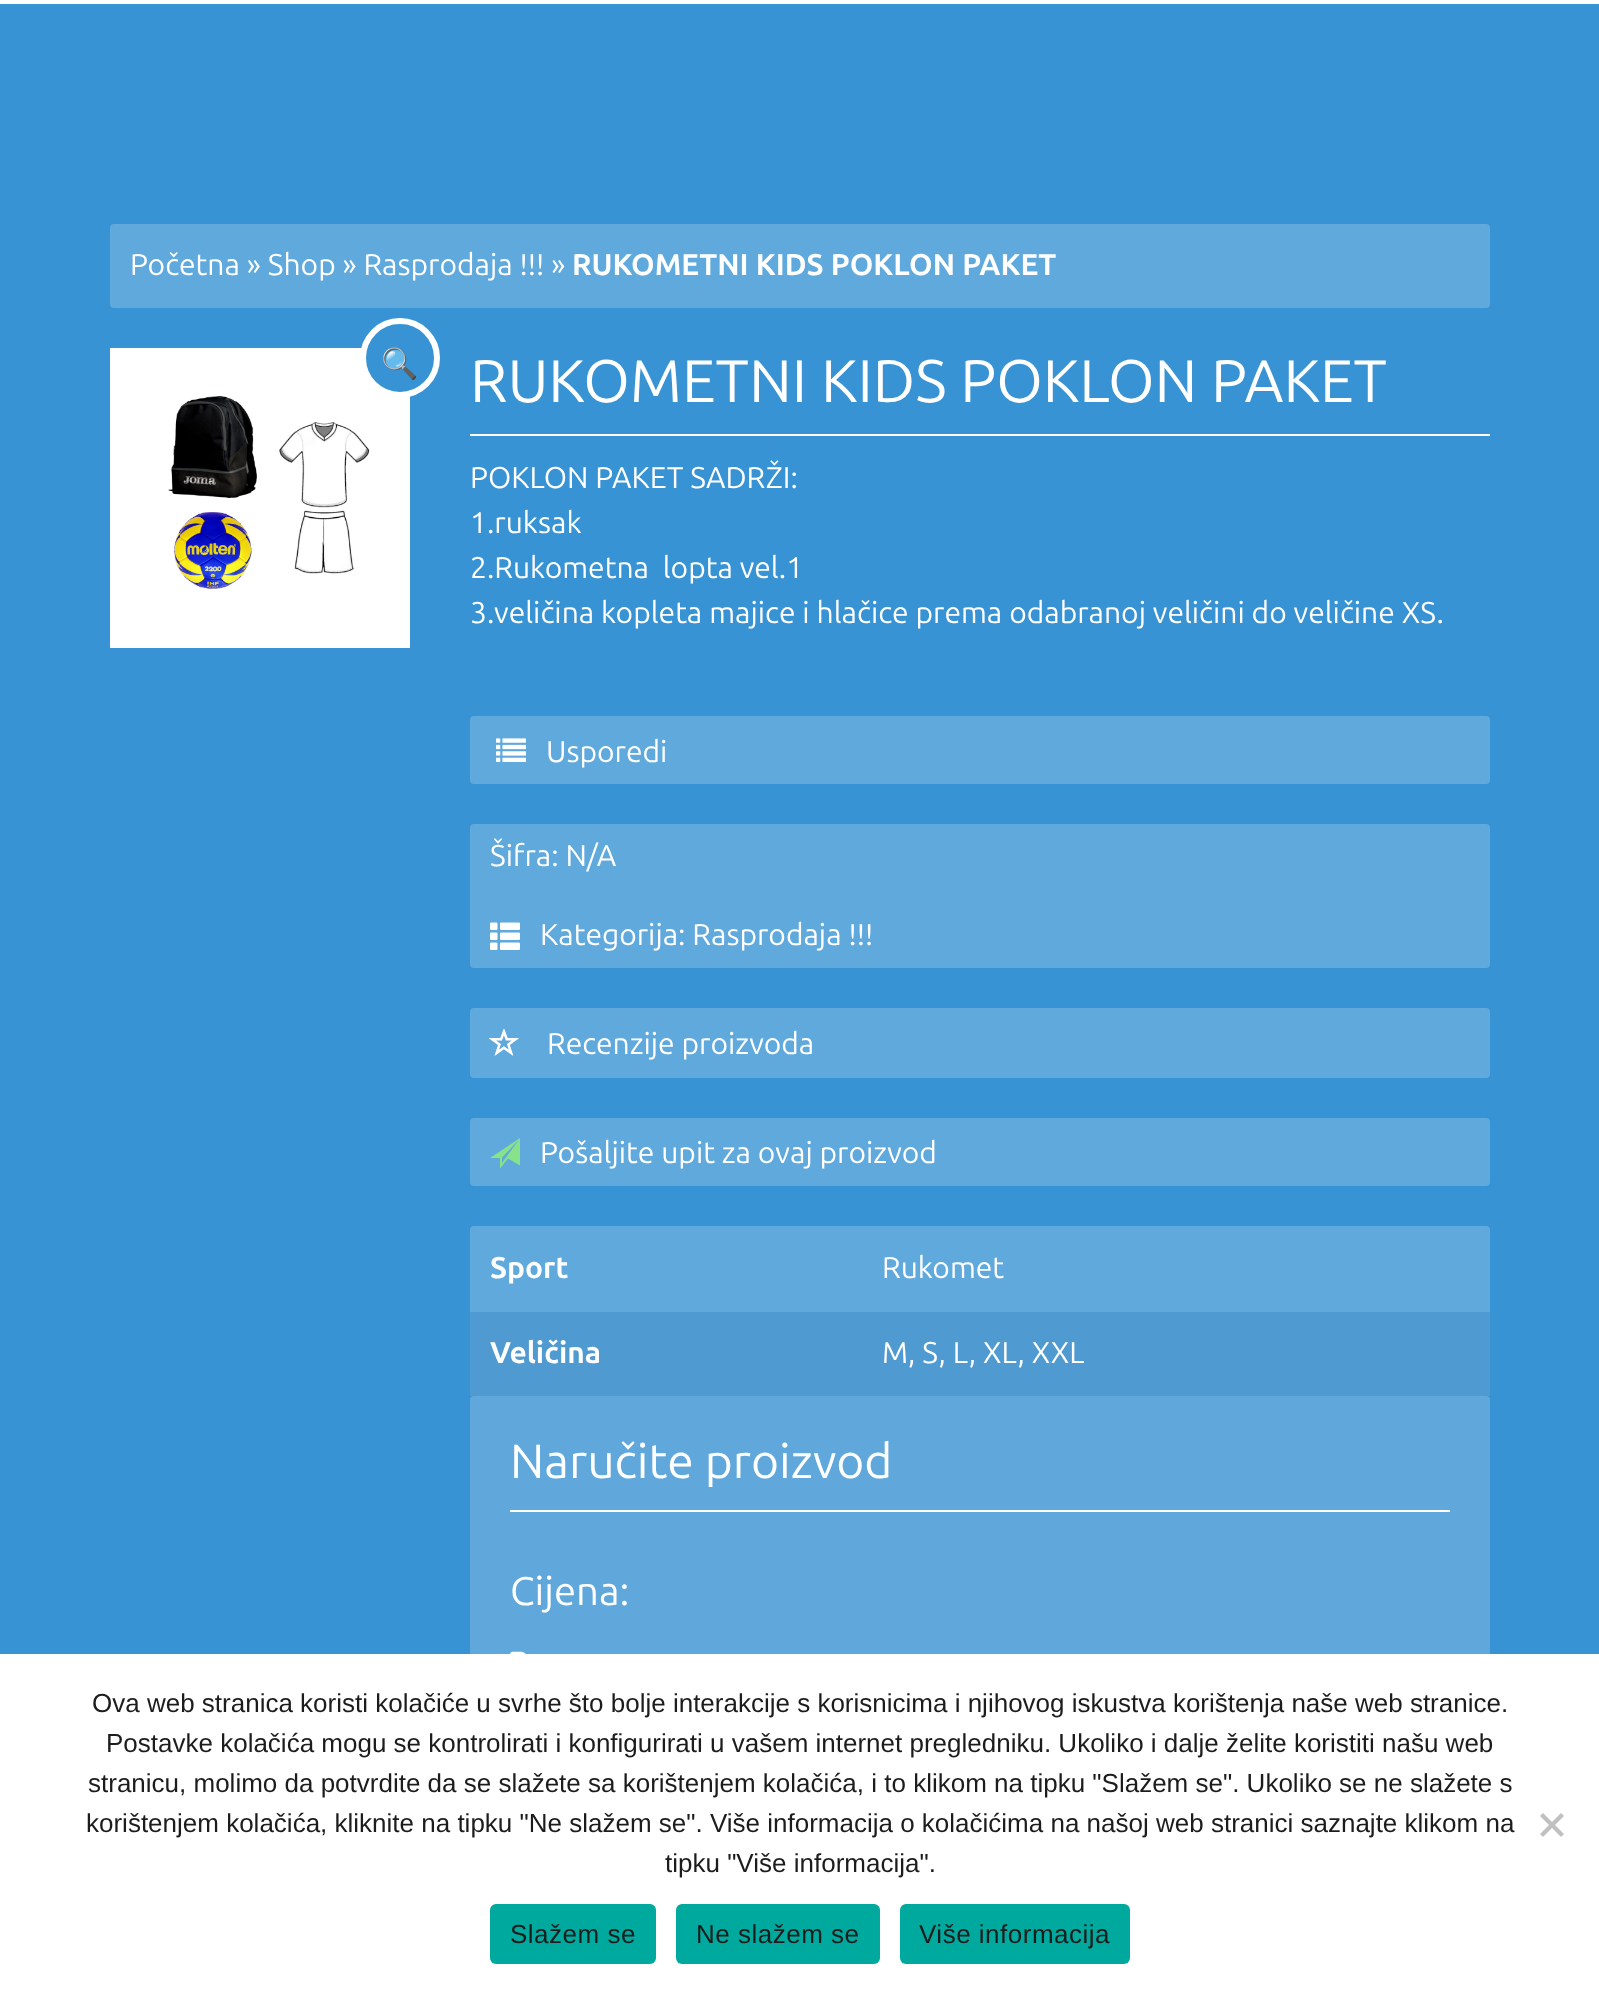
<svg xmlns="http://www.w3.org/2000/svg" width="1599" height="1994">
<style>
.a{font:30px Ubuntu;fill:#fff}
.b{font:bold 30px Ubuntu;fill:#fff}
.c{font:30px Noto Color Emoji;fill:#fff}
.d{font:60px Ubuntu;fill:#fff}
.e{font:48px Ubuntu;fill:#fff}
.f{font:40px Ubuntu;fill:#fff}
.g{font:26px Liberation Sans;fill:#1c1c1c}
.h{font:26px Liberation Sans;letter-spacing:0.5px;fill:#1c1c1c}
</style>
<rect width="100%" height="100%" fill="#fff"/>
<path fill="#3893d4" d="M0 4h1599v1650H0z"/>
<rect fill="#60a9dd" x="110" y="224" width="1380" height="84" rx="4"/>
<image href="1.png" x="110" y="348" width="300" height="300"/>
<circle fill="#3893d4" stroke="#fff" stroke-width="6" cx="400" cy="358" r="37"/>
<path fill="#fff" d="M470 434h1020v2H470z"/>
<rect fill="#60a9dd" x="470" y="716" width="1020" height="68" rx="4"/>
<image href="2.png" x="496" y="738" width="30" height="24"/>
<rect fill="#60a9dd" x="470" y="824" width="1020" height="144" rx="4"/>
<image href="3.png" x="490" y="922" width="30" height="28"/>
<rect fill="#60a9dd" x="470" y="1008" width="1020" height="70" rx="4"/>
<image href="4.png" x="489" y="1028" width="30" height="28"/>
<rect fill="#60a9dd" x="470" y="1118" width="1020" height="68" rx="4"/>
<path fill="#88e289" d="M520 1165.5l-12-7l-8 10v-10.5h-10l30-20zm-18-8v5.5l17-23.5z"/>
<rect fill="#60a9dd" x="470" y="1226" width="1020" height="170" rx="4"/>
<path fill="#4f9ad0" d="M470 1312h1020v84H470z"/>
<rect fill="#60a8db" x="470" y="1396" width="1020" height="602" rx="4"/>
<path fill="#fff" d="M510 1510h940v2H510z"/>
<image href="5.png" x="510" y="1651" width="16" height="3"/>
<path fill="#fff" d="M470 1654h1020v340H470z"/>
<path fill="#c0c0c0" d="M1561 1813l3 3l-21 21l-3-3z"/>
<path fill="#c0c0c0" d="M1540 1816l3-3l21 21l-3 3z"/>
<rect fill="#00a99d" x="490" y="1904" width="166" height="60" rx="6"/>
<rect fill="#00a99d" x="676" y="1904" width="204" height="60" rx="6"/>
<rect fill="#00a99d" x="900" y="1904" width="230" height="60" rx="6"/>
<text class="a" x="130" y="275">Početna » Shop » Rasprodaja !!! »</text>
<text class="b" x="572" y="275">RUKOMETNI KIDS POKLON PAKET</text>
<text class="c" x="381" y="374">🔍</text>
<text class="d" x="470" y="402">RUKOMETNI KIDS POKLON PAKET</text>
<text class="a" x="470" y="488">POKLON PAKET SADRŽI:</text>
<text class="a" x="470" y="533">1.ruksak</text>
<text class="a" xml:space="preserve" x="470" y="578">2.Rukometna  lopta vel.1</text>
<text class="a" x="470" y="623">3.veličina kopleta majice i hlačice prema odabranoj veličini do veličine XS.</text>
<text class="a" x="546" y="762">Usporedi</text>
<text class="a" x="490" y="866">Šifra: N/A</text>
<text class="a" x="540" y="945">Kategorija: Rasprodaja !!!</text>
<text class="a" x="547" y="1054">Recenzije proizvoda</text>
<text class="a" x="540" y="1163">Pošaljite upit za ovaj proizvod</text>
<text class="b" x="490" y="1278">Sport</text>
<text class="a" x="882" y="1278">Rukomet</text>
<text class="b" x="490" y="1363">Veličina</text>
<text class="a" x="882" y="1363">M, S, L, XL, XXL</text>
<text class="e" x="510" y="1478">Naručite proizvod</text>
<text class="f" x="510" y="1605">Cijena:</text>
<text class="g" x="92" y="1712">Ova web stranica koristi kolačiće u svrhe što bolje interakcije s korisnicima i njihovog iskustva korištenja naše web stranice.</text>
<text class="g" x="106" y="1752">Postavke kolačića mogu se kontrolirati i konfigurirati u vašem internet pregledniku. Ukoliko i dalje želite koristiti našu web</text>
<text class="g" x="88" y="1792">stranicu, molimo da potvrdite da se slažete sa korištenjem kolačića, i to klikom na tipku "Slažem se". Ukoliko se ne slažete s</text>
<text class="g" x="86" y="1832">korištenjem kolačića, kliknite na tipku "Ne slažem se". Više informacija o kolačićima na našoj web stranici saznajte klikom na</text>
<text class="g" x="665" y="1872">tipku "Više informacija".</text>
<text class="h" x="510" y="1943">Slažem se</text>
<text class="h" x="696" y="1943">Ne slažem se</text>
<text class="h" x="919" y="1943">Više informacija</text>
</svg>
